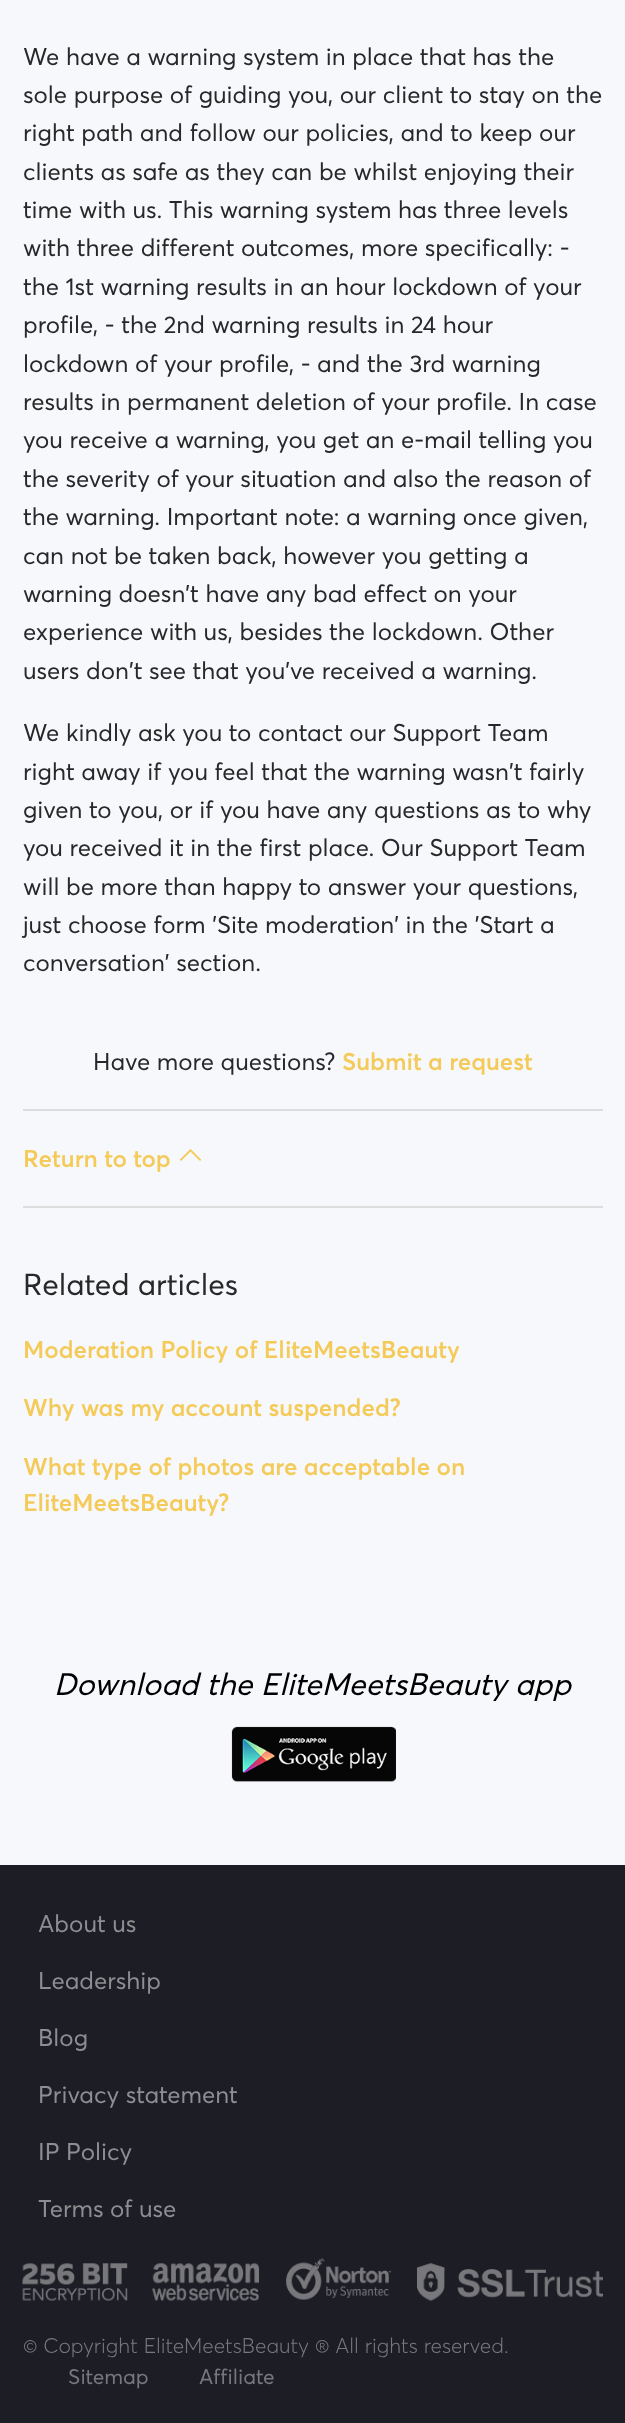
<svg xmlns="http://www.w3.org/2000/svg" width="625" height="2423">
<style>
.a{font:24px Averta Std;fill:#282828}
.b{font:600 24px Averta Std;fill:#f4ca59}
.c{font:30px Averta Std;fill:#282828}
.d{font:italic 30.6px Averta Std;fill:#000}
.e{font:24px Averta Std;fill:#8e8e92}
.f{font:300 21px Averta Std;fill:#77777c}
.g{font:21px Averta Std;fill:#77777c}
</style>
<rect width="100%" height="100%" fill="#f7f8fc"/>
<path fill="#ddd" d="M23 1109h580v2H23z"/>
<image href="1.png" x="180" y="1149" width="21" height="12"/>
<path fill="#ddd" d="M23 1206h580v2H23z"/>
<image href="2.png" x="231" y="1726" width="165" height="56"/>
<path fill="#1d1d25" d="M0 1865h625v558H0z"/>
<image href="3.png" x="22" y="2258" width="581" height="43"/>
<text class="a" x="23" y="65">We have a warning system in place that has the</text>
<text class="a" x="23" y="103">sole purpose of guiding you, our client to stay on the</text>
<text class="a" x="23" y="141">right path and follow our policies, and to keep our</text>
<text class="a" x="23" y="180">clients as safe as they can be whilst enjoying their</text>
<text class="a" x="23" y="218">time with us. This warning system has three levels</text>
<text class="a" x="23" y="256">with three different outcomes, more specifically: -</text>
<text class="a" x="23" y="295">the 1st warning results in an hour lockdown of your</text>
<text class="a" x="23" y="333">profile, - the 2nd warning results in 24 hour</text>
<text class="a" x="23" y="372">lockdown of your profile, - and the 3rd warning</text>
<text class="a" x="23" y="410">results in permanent deletion of your profile. In case</text>
<text class="a" x="23" y="448">you receive a warning, you get an e-mail telling you</text>
<text class="a" x="23" y="487">the severity of your situation and also the reason of</text>
<text class="a" x="23" y="525">the warning. Important note: a warning once given,</text>
<text class="a" x="23" y="564">can not be taken back, however you getting a</text>
<text class="a" x="23" y="602">warning doesn't have any bad effect on your</text>
<text class="a" x="23" y="640">experience with us, besides the lockdown. Other</text>
<text class="a" x="23" y="679">users don't see that you've received a warning.</text>
<text class="a" x="23" y="741">We kindly ask you to contact our Support Team</text>
<text class="a" x="23" y="780">right away if you feel that the warning wasn't fairly</text>
<text class="a" x="23" y="818">given to you, or if you have any questions as to why</text>
<text class="a" x="23" y="856">you received it in the first place. Our Support Team</text>
<text class="a" x="23" y="895">will be more than happy to answer your questions,</text>
<text class="a" x="23" y="933">just choose form 'Site moderation' in the 'Start a</text>
<text class="a" x="23" y="971">conversation' section.</text>
<text class="a" x="93" y="1070">Have more questions?</text>
<text class="b" x="342" y="1070">Submit a request</text>
<text class="b" x="23" y="1167">Return to top</text>
<text class="c" x="23" y="1295">Related articles</text>
<text class="b" x="23" y="1358">Moderation Policy of EliteMeetsBeauty</text>
<text class="b" x="23" y="1416">Why was my account suspended?</text>
<text class="b" x="23" y="1475">What type of photos are acceptable on</text>
<text class="b" x="23" y="1511">EliteMeetsBeauty?</text>
<text class="d" x="54" y="1695">Download the EliteMeetsBeauty app</text>
<text class="e" x="38" y="1932">About us</text>
<text class="e" x="38" y="1989">Leadership</text>
<text class="e" x="38" y="2046">Blog</text>
<text class="e" x="38" y="2103">Privacy statement</text>
<text class="e" x="38" y="2160">IP Policy</text>
<text class="e" x="38" y="2217">Terms of use</text>
<text class="f" x="23" y="2353">© Copyright EliteMeetsBeauty ® All rights reserved.</text>
<text class="g" x="68" y="2384">Sitemap</text>
<text class="g" x="199" y="2384">Affiliate</text>
</svg>
